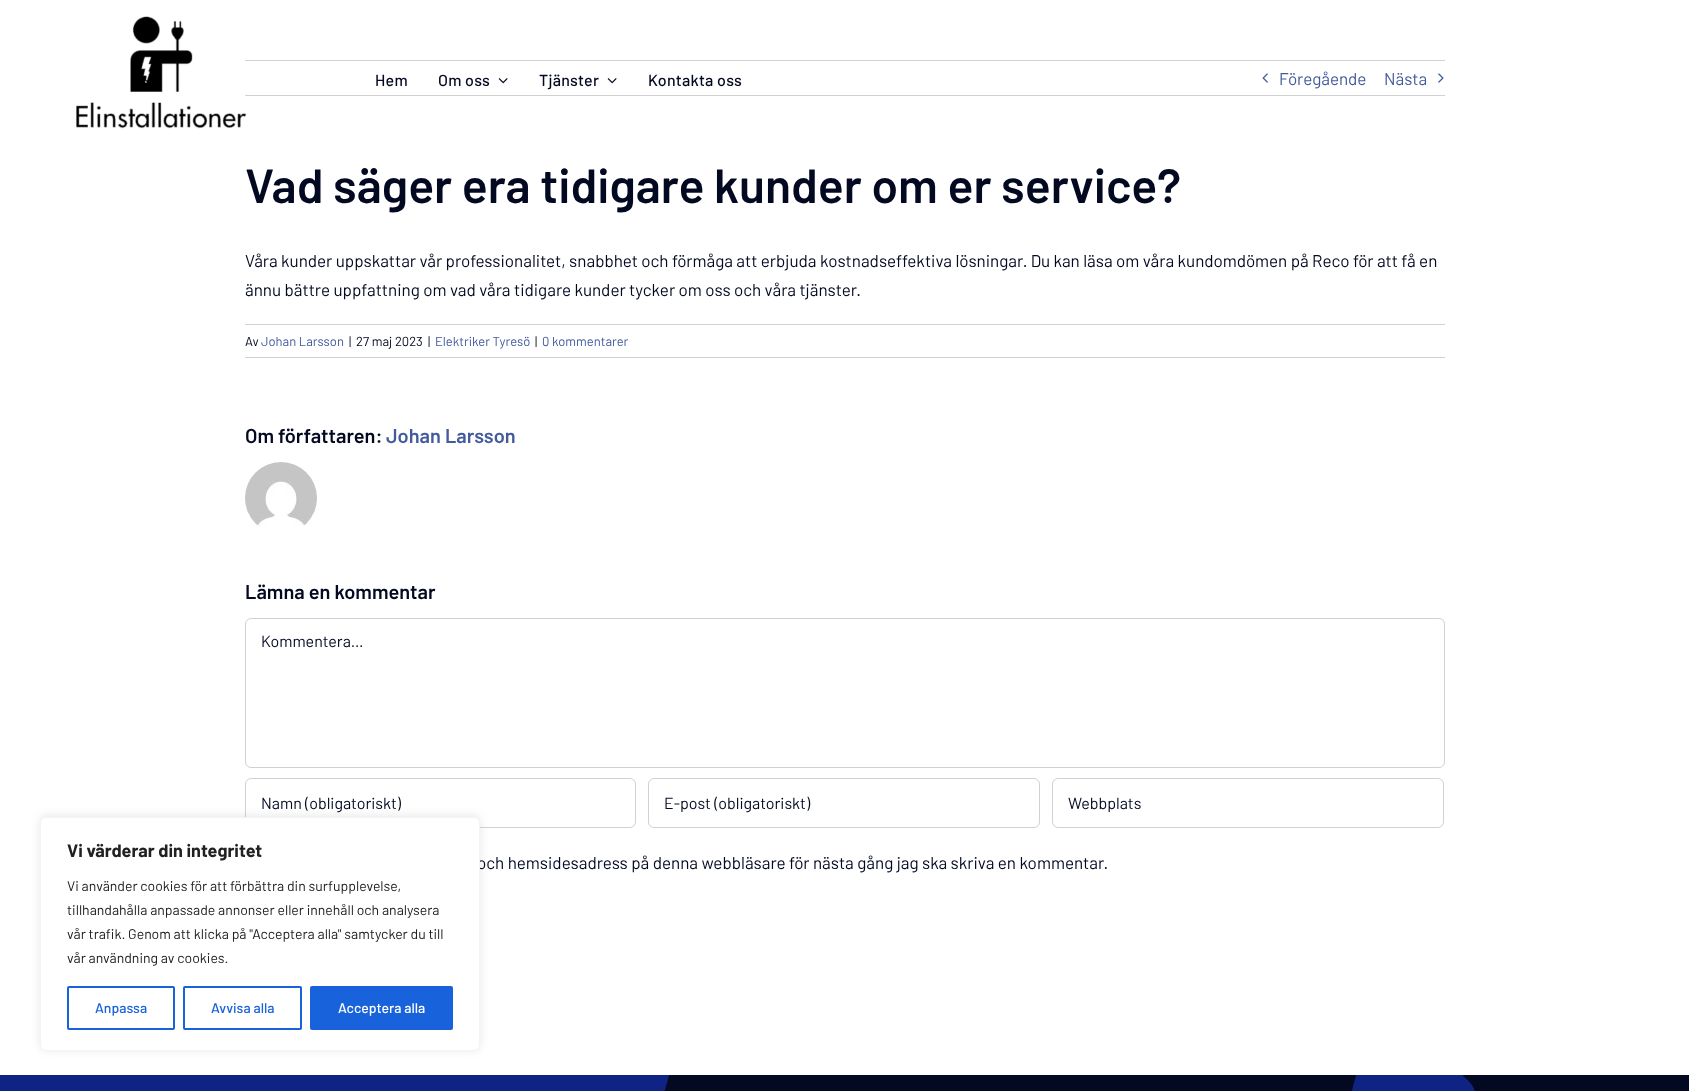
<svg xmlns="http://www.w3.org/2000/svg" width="1689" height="1091">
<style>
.a{font:17px Barlow;fill:#425a9e}
.b{font:600 48px Barlow;fill:#040922}
.c{font:17px Barlow;fill:#040922}
.d{font:13px Barlow;fill:#040922}
.e{font:13px Barlow;fill:#425a9e}
.f{font:600 20px Barlow;fill:#040922}
.g{font:600 20px Barlow;fill:#425a9e}
.h{font:16px Barlow;fill:#040922}
.i{font:500 16px Barlow;letter-spacing:0.25px;fill:#040922}
.j{font:bold 18px Barlow;fill:#212121}
.k{font:14px Barlow;fill:#212121}
.l{font:500 14px Barlow;fill:#1863dc}
.m{font:500 14px Barlow;fill:#fff}
</style>
<rect width="100%" height="100%" fill="#fff"/>
<path fill="#d1d1d1" d="M245 60h1200v1H245z"/>
<path fill="#d1d1d1" d="M245 95h1200v1H245z"/>
<image href="1.png" x="1262" y="73" width="6" height="10"/>
<image href="2.png" x="1438" y="73" width="6" height="10"/>
<path fill="#d1d1d1" d="M245 324h1200v1H245z"/>
<path fill="#d1d1d1" d="M245 357h1200v1H245z"/>
<image href="3.png" x="245" y="462" width="72" height="64"/>
<rect fill="none" stroke="#d1d1d1" x="245.5" y="618.5" width="1199" height="149" rx="5.5"/>
<rect fill="none" stroke="#d1d1d1" x="245.5" y="778.5" width="390" height="49" rx="5.5"/>
<rect fill="none" stroke="#d1d1d1" x="648.5" y="778.5" width="391" height="49" rx="5.5"/>
<rect fill="none" stroke="#d1d1d1" x="1052.5" y="778.5" width="391" height="49" rx="5.5"/>
<image href="4.png" x="76" y="16" width="171" height="113"/>
<image href="5.png" x="498" y="78" width="10" height="6"/>
<image href="5.png" x="607" y="78" width="10" height="6"/>
<path fill="#040922" d="M664 1075h1025v16H664z"/>
<image href="6.png" x="0" y="1075" width="1475" height="16"/>
<rect fill="#acabab4d" filter="blur(5px)" x="40" y="816" width="440" height="234" rx="6"/>
<text class="a" x="1279" y="85">Föregående</text>
<text class="a" x="1384" y="85">Nästa</text>
<text class="b" x="245" y="203">Vad säger era tidigare kunder om er service?</text>
<text class="c" x="245" y="267">Våra kunder uppskattar vår professionalitet, snabbhet och förmåga att erbjuda kostnadseffektiva lösningar. Du kan läsa om våra kundomdömen på Reco för att få en</text>
<text class="c" x="245" y="296">ännu bättre uppfattning om vad våra tidigare kunder tycker om oss och våra tjänster.</text>
<text class="d" x="245" y="346">Av</text>
<text class="e" x="261" y="346">Johan Larsson</text>
<text class="d" x="349" y="346">|</text>
<text class="d" x="356" y="346">27 maj 2023</text>
<text class="d" x="428" y="346">|</text>
<text class="e" x="435" y="346">Elektriker Tyresö</text>
<text class="d" x="535" y="346">|</text>
<text class="e" x="542" y="346">0 kommentarer</text>
<text class="f" x="245" y="443">Om författaren:</text>
<text class="g" x="386" y="443">Johan Larsson</text>
<text class="f" x="245" y="599">Lämna en kommentar</text>
<text class="h" x="261" y="647">Kommentera…</text>
<text class="h" x="261" y="809">Namn (obligatoriskt)</text>
<text class="h" x="664" y="809">E-post (obligatoriskt)</text>
<text class="h" x="1068" y="809">Webbplats</text>
<text class="c" x="477" y="869">och hemsidesadress på denna webbläsare för nästa gång jag ska skriva en kommentar.</text>
<text class="i" x="375" y="86">Hem</text>
<text class="i" x="438" y="86">Om oss</text>
<text class="i" x="539" y="86">Tjänster</text>
<text class="i" x="648" y="86">Kontakta oss</text>
<rect fill="#fff" stroke="#f4f4f4" x="40.5" y="817.5" width="439" height="233" rx="5.5"/>
<text class="j" x="67" y="857">Vi värderar din integritet</text>
<text class="k" x="67" y="891">Vi använder cookies för att förbättra din surfupplevelse,</text>
<text class="k" x="67" y="915">tillhandahålla anpassade annonser eller innehåll och analysera</text>
<text class="k" x="67" y="939">vår trafik. Genom att klicka på "Acceptera alla" samtycker du till</text>
<text class="k" x="67" y="963">vår användning av cookies.</text>
<rect fill="none" stroke="#1863dc" stroke-width="2" x="68" y="987" width="106" height="42" rx="1"/>
<text class="l" x="95" y="1013">Anpassa</text>
<rect fill="none" stroke="#1863dc" stroke-width="2" x="184" y="987" width="117" height="42" rx="1"/>
<text class="l" x="211" y="1013">Avvisa alla</text>
<rect fill="#1863dc" stroke="#1863dc" stroke-width="2" x="311" y="987" width="141" height="42" rx="1"/>
<text class="m" x="338" y="1013">Acceptera alla</text>
</svg>
